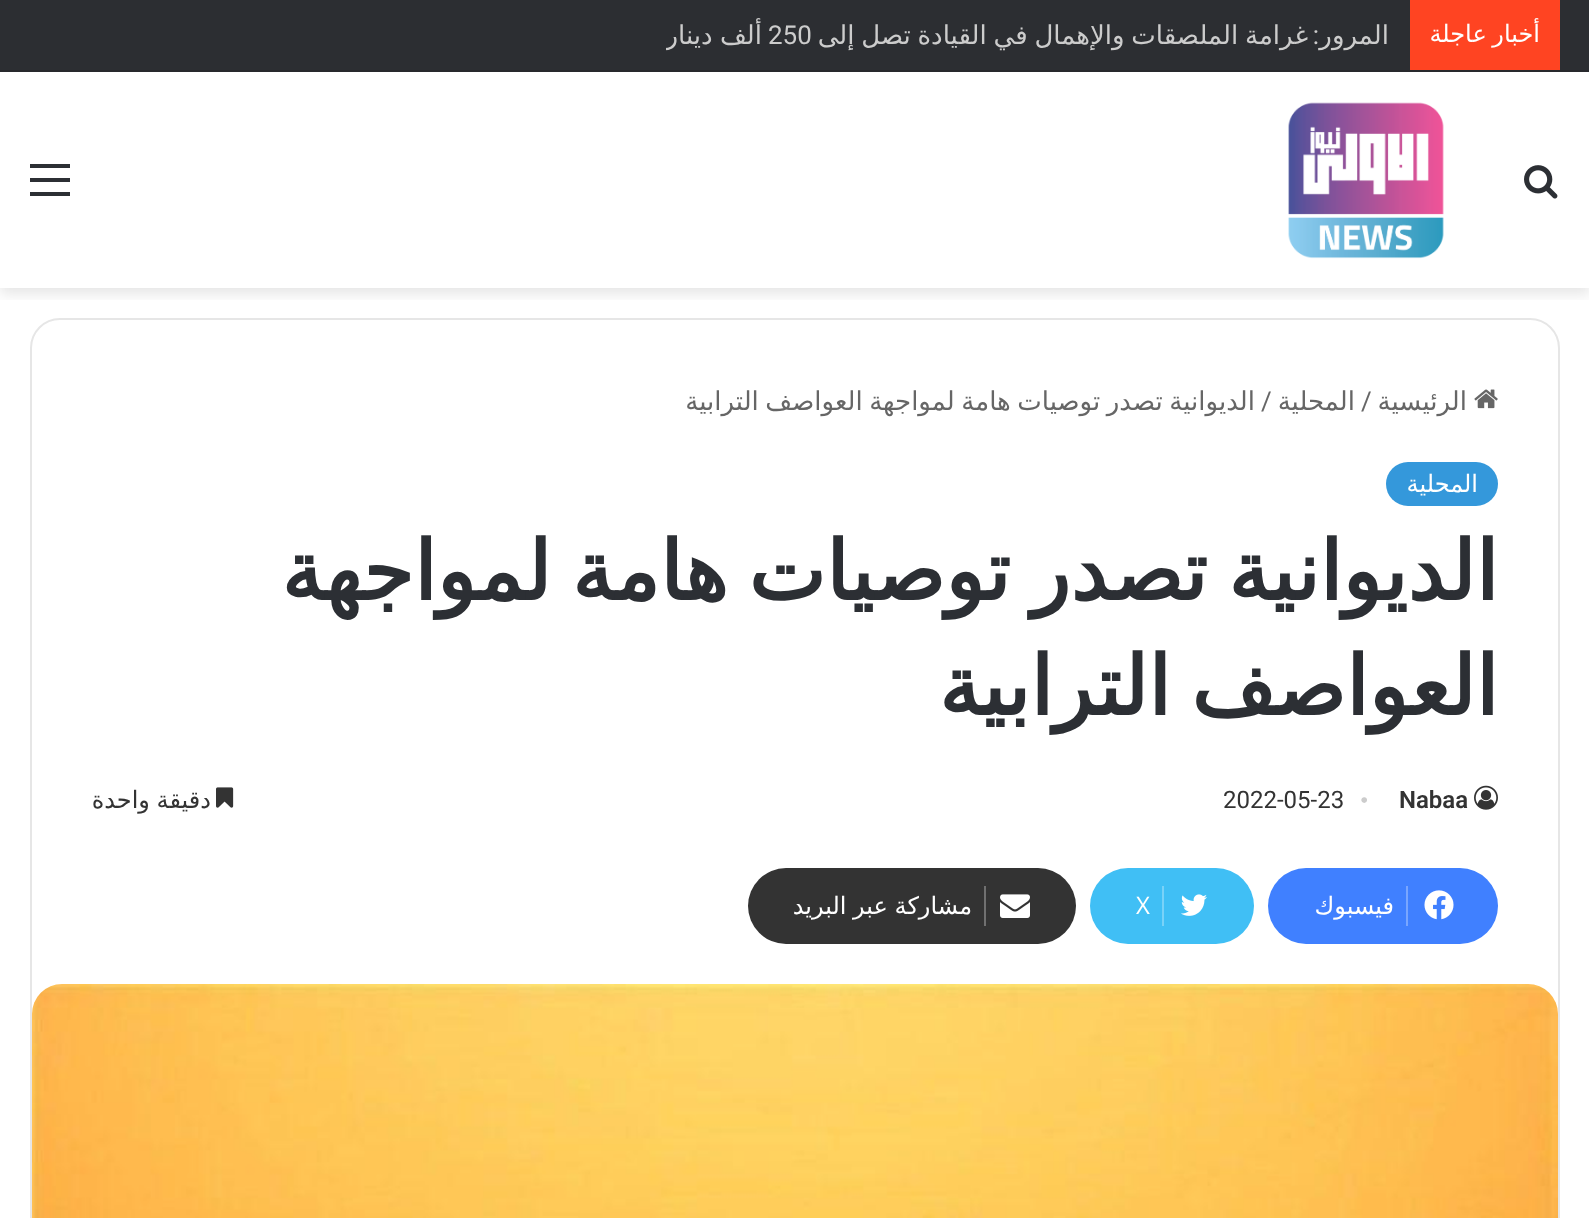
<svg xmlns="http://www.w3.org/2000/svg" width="1589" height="1218">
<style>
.a{font:24px DejaVu Sans;direction:rtl;fill:#fff}
.b{font:26px DejaVu Sans;direction:rtl;fill:#ccc}
.c{font:26px Roboto;fill:#ccc}
.d{font:26px Roboto;direction:rtl;fill:#ccc}
.e{font:26px DejaVu Sans;direction:rtl;fill:#666}
.f{font:26px Roboto;fill:#666}
.g{font:bold 82px DejaVu Sans;direction:rtl;fill:#2c2f34}
.h{font:600 24px Roboto;fill:#333}
.i{font:24px Liberation Serif;fill:#ccc}
.j{font:24px Roboto;fill:#333}
.k{font:24px DejaVu Sans;direction:rtl;fill:#333}
.l{font:24px Open Sans;fill:#fff}
</style>
<defs>
<clipPath id="clip1"><path d="M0 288h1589v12H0z"/></clipPath>
<clipPath id="clip2"><path d="M666 0h724v70H666z"/></clipPath>
</defs>
<rect width="100%" height="100%" fill="#fff"/>
<g clip-path="url(#clip1)">
<path fill="#0000001a" filter="blur(7px)" d="M0 78h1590v216H0z"/>
</g>
<path fill="#2c2e32" d="M0 0h1589v70H0z"/>
<path fill="#28292d" d="M0 70h1589v2H0z"/>
<path fill="#f42" d="M1410 0h150v70H1410z"/>
<image href="1.png" x="1524" y="165" width="34" height="34"/>
<image href="2.png" x="1288" y="102" width="156" height="157"/>
<path fill="#2c2f34" d="M30 178h40v4H30z"/>
<path fill="#2c2f34" d="M30 164h40v4H30z"/>
<path fill="#2c2f34" d="M30 192h40v4H30z"/>
<rect fill="none" stroke="#e6e6e6" stroke-width="2" x="31" y="319" width="1528" height="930" rx="29"/>
<image href="3.png" x="1474" y="389" width="24" height="20"/>
<rect fill="#3498db" x="1386" y="462" width="112" height="44" rx="22"/>
<image href="4.png" x="1474" y="785" width="24" height="25"/>
<image href="5.png" x="216" y="787" width="18" height="21"/>
<rect fill="#4080ff" x="1268" y="868" width="230" height="76" rx="38"/>
<image href="6.png" x="1424" y="890" width="30" height="30"/>
<path fill="#79a6ff" d="M1406 886h2v40H1406z"/>
<rect fill="#40bff5" x="1090" y="868" width="164" height="76" rx="38"/>
<image href="7.png" x="1181" y="894" width="26" height="22"/>
<path fill="#79d2f8" d="M1162 886h2v40H1162z"/>
<rect fill="#333" x="748" y="868" width="328" height="76" rx="38"/>
<image href="8.png" x="1000" y="894" width="30" height="24"/>
<path fill="#707070" d="M984 886h2v40H984z"/>
<image href="9.png" x="32" y="984" width="1526" height="234"/>
<text class="a" x="1540" y="42" word-spacing="-2">أخبار عاجلة</text>
<text class="b" x="1389" y="44">المرور</text>
<text class="b" x="1308" y="44" word-spacing="-1.5">غرامة الملصقات والإهمال في القيادة تصل إلى</text>
<text class="c" x="768" y="44">250</text>
<g clip-path="url(#clip2)">
<text class="b" x="762" y="44" word-spacing="-1">ألف دينار</text>
</g>
<text class="d" x="1319" y="44">:</text>
<text class="e" x="1467" y="410">الرئيسية</text>
<text class="f" x="1361" y="410">/</text>
<text class="e" x="1355" y="410">المحلية</text>
<text class="f" x="1261" y="410">/</text>
<text class="e" x="1255" y="410" word-spacing="-1.75">الديوانية تصدر توصيات هامة لمواجهة العواصف الترابية</text>
<text class="a" x="1478" y="492">المحلية</text>
<text class="g" x="1498" y="600" word-spacing="-5.5">الديوانية تصدر توصيات هامة لمواجهة</text>
<text class="g" x="1498" y="715" word-spacing="-5.5">العواصف الترابية</text>
<text class="h" x="1399" y="808">Nabaa</text>
<text class="i" x="1360" y="808">•</text>
<text class="j" x="1223" y="808">2022-05-23</text>
<text class="k" x="211" y="808" word-spacing="-1">دقيقة واحدة</text>
<text class="a" x="1394" y="914">فيسبوك</text>
<text class="l" x="1136" y="914">X</text>
<text class="a" x="972" y="914" word-spacing="-1">مشاركة عبر البريد</text>
</svg>
